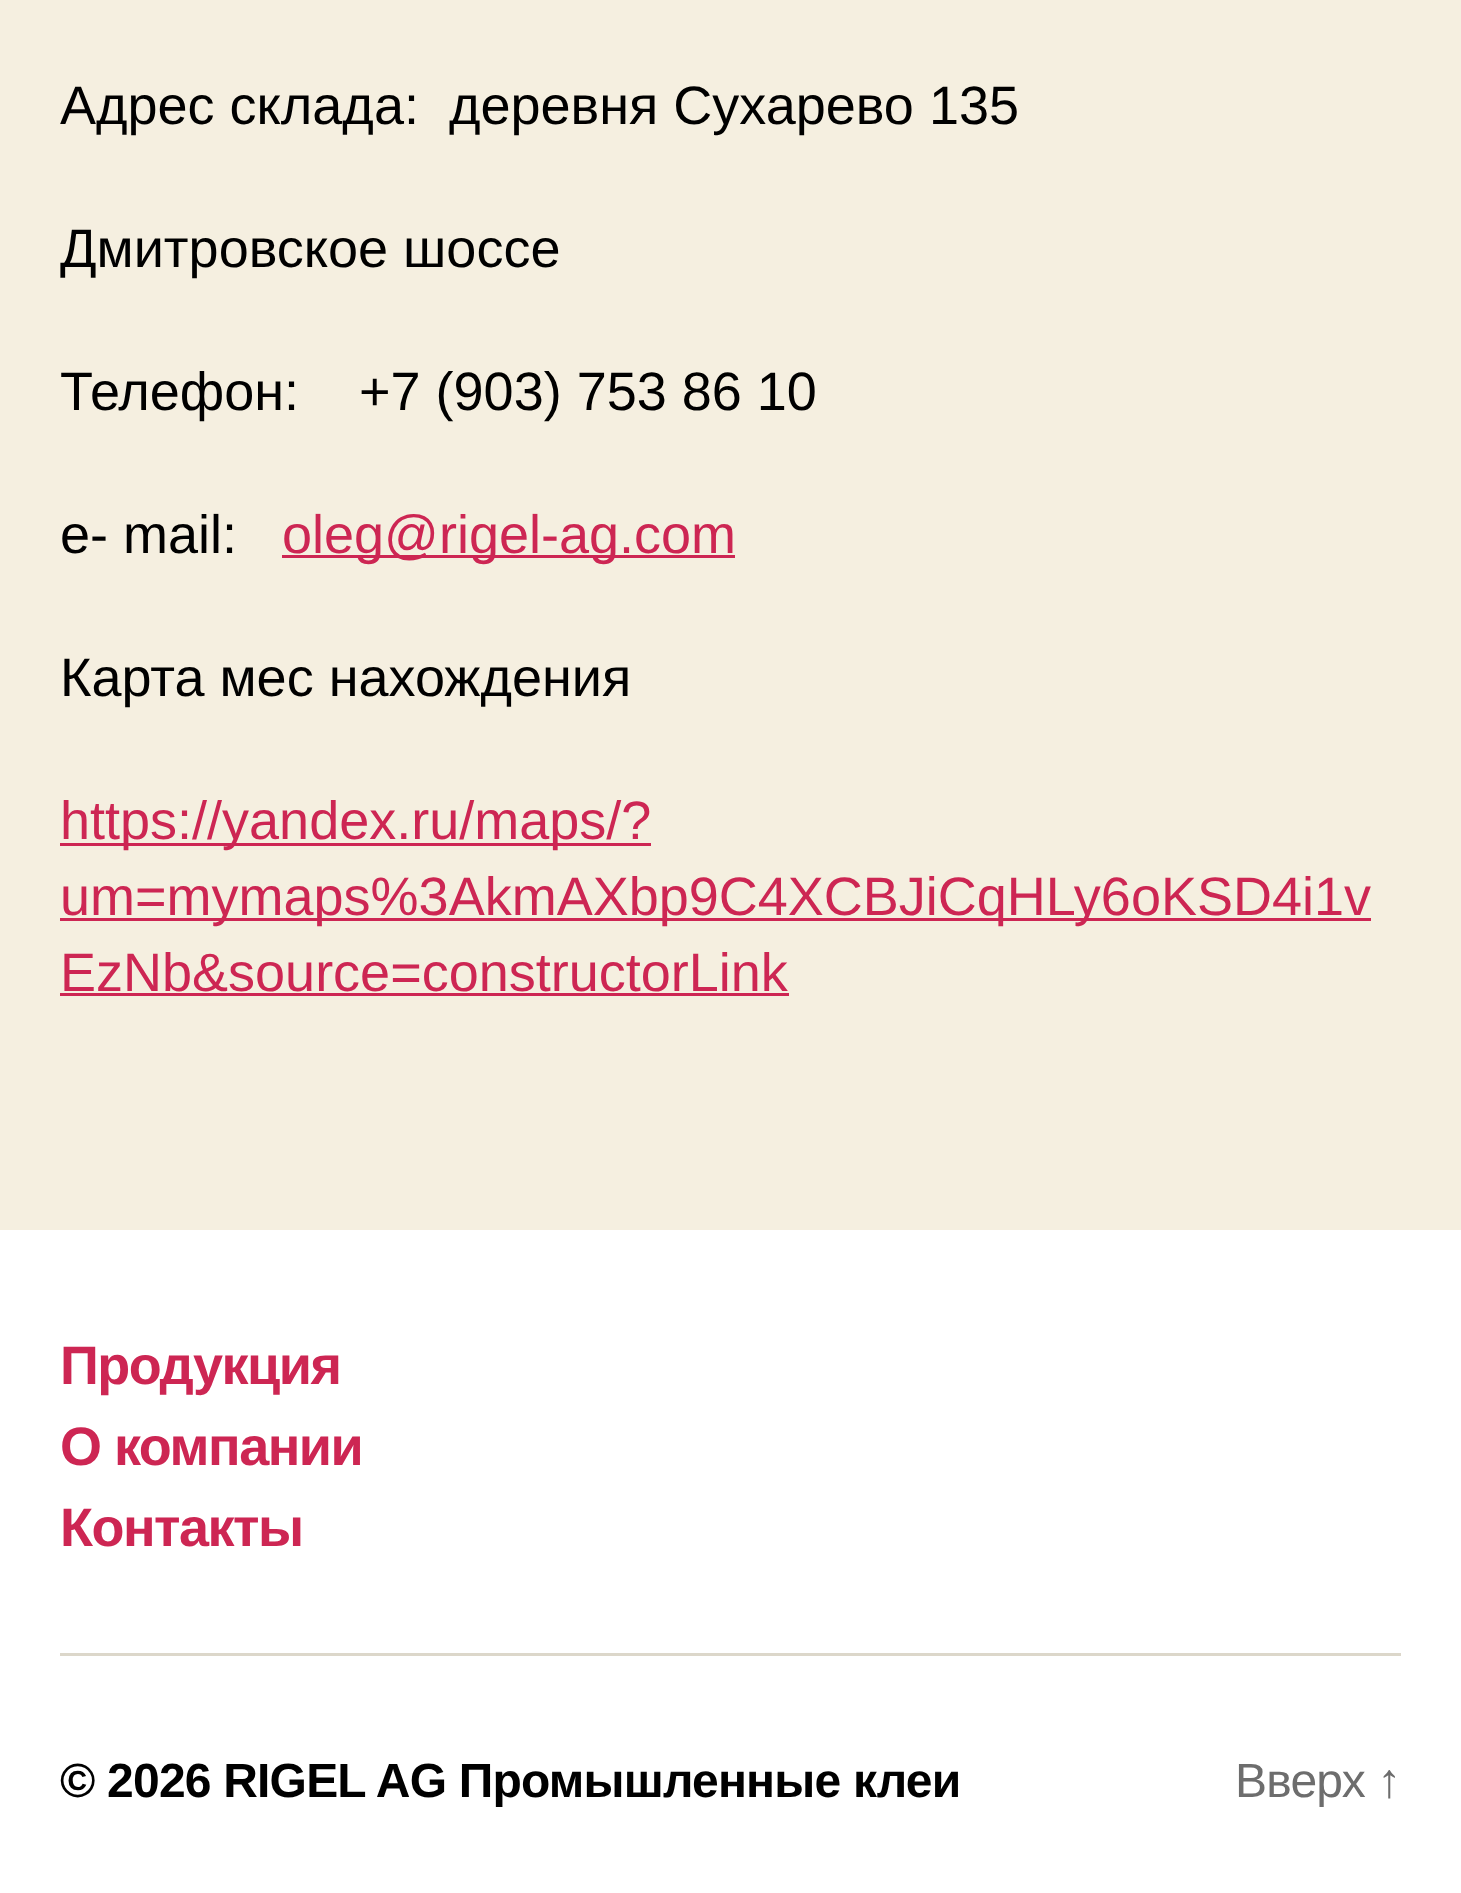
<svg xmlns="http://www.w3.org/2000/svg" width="1461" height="1893">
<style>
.a{font:54px Liberation Sans;fill:#000}
.b{font:54px Liberation Sans;fill:#cd2653}
.c{font:bold 54px Liberation Sans;letter-spacing:-1.5px;fill:#cd2653}
.d{font:bold 48px Liberation Sans;letter-spacing:-0.8px;fill:#000}
.e{font:48px Liberation Sans;letter-spacing:-0.8px;fill:#6d6d6d}
</style>
<rect width="100%" height="100%" fill="#f5efe0"/>
<path fill="#cd2653" d="M282 555h453v3H282z"/>
<path fill="#cd2653" d="M60 843h591v3H60z"/>
<path fill="#cd2653" d="M60 918h1311v3H60z"/>
<path fill="#cd2653" d="M60 993h729v3H60z"/>
<path fill="#fff" d="M0 1230h1461v663H0z"/>
<path fill="#dcd7ca" d="M60 1653h1341v3H60z"/>
<text class="a" xml:space="preserve" x="60" y="124">Адрес склада:  деревня Сухарево 135</text>
<text class="a" x="60" y="267">Дмитровское шоссе</text>
<text class="a" xml:space="preserve" x="60" y="410">Телефон:    +7 (903) 753 86 10</text>
<text class="a" x="60" y="553">e- mail:</text>
<text class="b" x="282" y="553">oleg@rigel-ag.com</text>
<text class="a" x="60" y="696">Карта мес нахождения</text>
<text class="b" x="60" y="839">https://yandex.ru/maps/?</text>
<text class="b" x="60" y="915">um=mymaps%3AkmAXbp9C4XCBJiCqHLy6oKSD4i1v</text>
<text class="b" x="60" y="991">EzNb&amp;source=constructorLink</text>
<text class="c" x="60" y="1384">Продукция</text>
<text class="c" x="60" y="1465">О компании</text>
<text class="c" x="60" y="1546">Контакты</text>
<text class="d" x="60" y="1797">© 2026 RIGEL AG Промышленные клеи</text>
<text class="e" x="1235" y="1797">Вверх ↑</text>
</svg>
